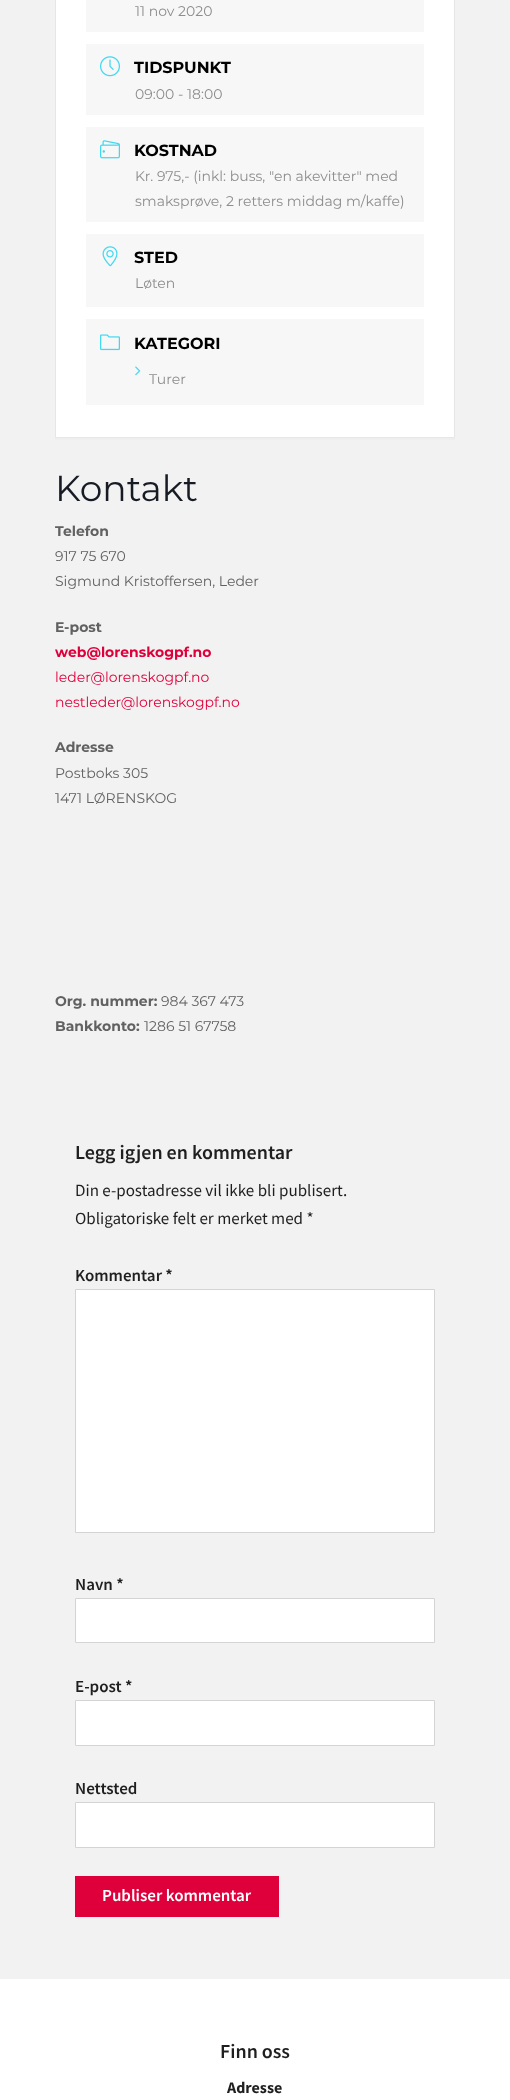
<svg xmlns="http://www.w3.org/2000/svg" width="510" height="2100">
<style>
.a{font:14px Montserrat;fill:#8d8d8d}
.b{font:bold 16px Montserrat;fill:#000}
.c{font:36px Montserrat;fill:#171c24}
.d{font:bold 14px Montserrat;fill:#616161}
.e{font:14px Montserrat;fill:#616161}
.f{font:bold 14px Montserrat;fill:#df003b}
.g{font:14px Montserrat;fill:#df003b}
.h{font:600 20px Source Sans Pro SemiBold;fill:#1f1f1f}
.i{font:17px Source Sans Pro;fill:#1f1f1f}
.j{font:600 17px Source Sans Pro SemiBold;fill:#1f1f1f}
.k{font:600 17px Source Sans Pro SemiBold;fill:#fff}
.l{font:bold 16px Source Sans Pro;fill:#1f1f1f}
</style>
<rect width="100%" height="100%" fill="#f2f2f2"/>
<path fill="#eee" d="M55 438h400v2H55z"/>
<path fill="#fff" stroke="#e6e6e6" d="M55.5 -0.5h399v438H55.5z"/>
<path fill="#f7f7f7" d="M86 0h338v32H86z"/>
<path fill="#f7f7f7" d="M86 44h338v71H86z"/>
<image href="1.png" x="100" y="56" width="20" height="21"/>
<path fill="#f7f7f7" d="M86 127h338v95H86z"/>
<image href="2.png" x="100" y="140" width="20" height="19"/>
<path fill="#f7f7f7" d="M86 234h338v73H86z"/>
<image href="3.png" x="102" y="246" width="16" height="21"/>
<path fill="#f7f7f7" d="M86 319h338v86H86z"/>
<image href="4.png" x="100" y="334" width="20" height="17"/>
<image href="5.png" x="135" y="366" width="6" height="10"/>
<path fill="#fff" stroke="#d4d4d4" d="M75.5 1289.5h359v243H75.5z"/>
<path fill="#fff" stroke="#d4d4d4" d="M75.5 1598.5h359v44H75.5z"/>
<path fill="#fff" stroke="#d4d4d4" d="M75.5 1700.5h359v45H75.5z"/>
<path fill="#fff" stroke="#d4d4d4" d="M75.5 1802.5h359v45H75.5z"/>
<path fill="#df003b" d="M75 1876h204v41H75z"/>
<path fill="#fff" d="M0 1979h510v121H0z"/>
<text class="a" x="135" y="16">11 nov 2020</text>
<text class="b" x="134" y="73">TIDSPUNKT</text>
<text class="a" x="135" y="99">09:00 - 18:00</text>
<text class="b" x="134" y="156">KOSTNAD</text>
<text class="a" x="135" y="181">Kr. 975,- (inkl: buss, "en akevitter" med</text>
<text class="a" x="135" y="206">smaksprøve, 2 retters middag m/kaffe)</text>
<text class="b" x="134" y="263">STED</text>
<text class="a" x="135" y="288">Løten</text>
<text class="b" x="134" y="349">KATEGORI</text>
<text class="a" x="149" y="384">Turer</text>
<text class="c" x="55" y="501">Kontakt</text>
<text class="d" x="55" y="536">Telefon</text>
<text class="e" x="55" y="561">917 75 670</text>
<text class="e" x="55" y="586">Sigmund Kristoffersen, Leder</text>
<text class="d" x="55" y="632">E-post</text>
<text class="f" x="55" y="657">web@lorenskogpf.no</text>
<text class="g" x="55" y="682">leder@lorenskogpf.no</text>
<text class="g" x="55" y="707">nestleder@lorenskogpf.no</text>
<text class="d" x="55" y="752">Adresse</text>
<text class="e" x="55" y="778">Postboks 305</text>
<text class="e" x="55" y="803">1471 LØRENSKOG</text>
<text class="d" x="55" y="1006">Org. nummer:</text>
<text class="e" x="161" y="1006">984 367 473</text>
<text class="d" x="55" y="1031">Bankkonto:</text>
<text class="e" x="144" y="1031">1286 51 67758</text>
<text class="h" x="75" y="1159">Legg igjen en kommentar</text>
<text class="i" x="75" y="1196">Din e-postadresse vil ikke bli publisert.</text>
<text class="i" x="75" y="1224">Obligatoriske felt er merket med *</text>
<text class="j" x="75" y="1281">Kommentar *</text>
<text class="j" x="75" y="1590">Navn *</text>
<text class="j" x="75" y="1692">E-post *</text>
<text class="j" x="75" y="1794">Nettsted</text>
<text class="k" x="102" y="1901">Publiser kommentar</text>
<text class="h" x="220" y="2058">Finn oss</text>
<text class="l" x="227" y="2093">Adresse</text>
</svg>
